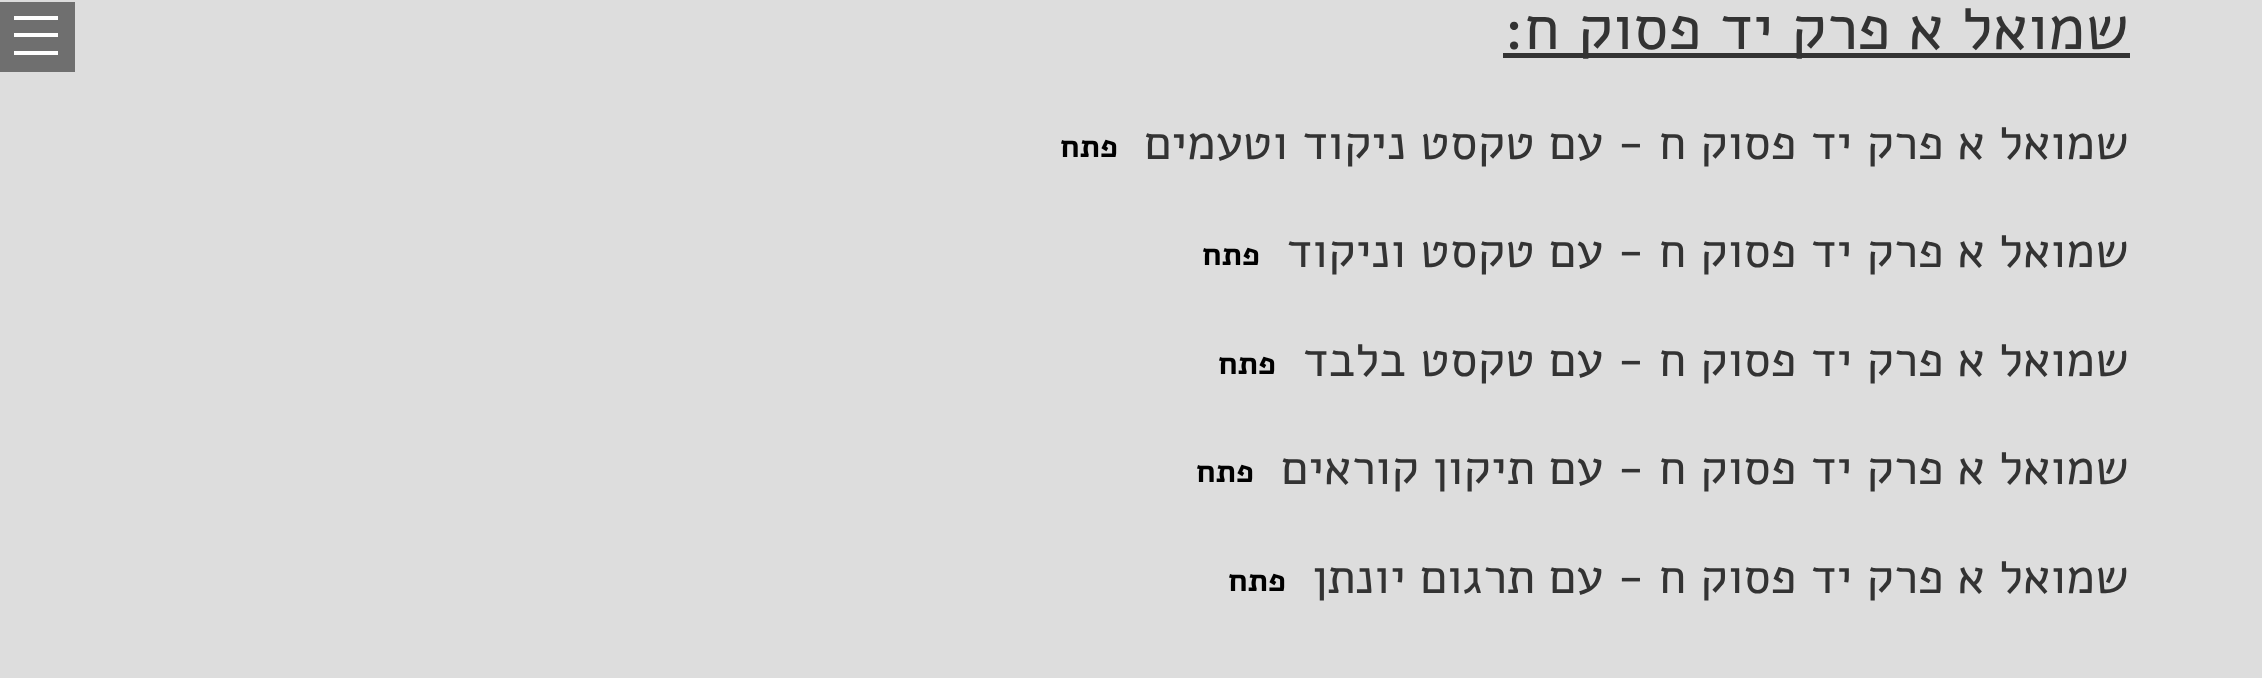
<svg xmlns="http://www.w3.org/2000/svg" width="2262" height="678">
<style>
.a{font:63px Alef;direction:rtl;fill:#333}
.b{font:49px Alef;direction:rtl;fill:#333}
.c{font:bold 32px Alef;direction:rtl;fill:#000}
</style>
<rect width="100%" height="100%" fill="#ddd"/>
<path fill="#333" d="M1503 53h627v5H1503z"/>
<path fill="#6f6f6f" d="M0 2h75v70H0z"/>
<path fill="#fff" d="M14 33h44v4H14z"/>
<path fill="#fff" d="M14 16h44v4H14z"/>
<path fill="#fff" d="M14 51h44v4H14z"/>
<text class="a" x="2129" y="49">שמואל א פרק יד פסוק ח:</text>
<text class="b" x="2129" y="159">שמואל א פרק יד פסוק ח - עם טקסט ניקוד וטעמים</text>
<text class="c" x="1118" y="157">פתח</text>
<text class="b" x="2129" y="267">שמואל א פרק יד פסוק ח - עם טקסט וניקוד</text>
<text class="c" x="1260" y="265">פתח</text>
<text class="b" x="2129" y="376">שמואל א פרק יד פסוק ח - עם טקסט בלבד</text>
<text class="c" x="1276" y="374">פתח</text>
<text class="b" x="2129" y="484">שמואל א פרק יד פסוק ח - עם תיקון קוראים</text>
<text class="c" x="1254" y="482">פתח</text>
<text class="b" x="2129" y="593">שמואל א פרק יד פסוק ח - עם תרגום יונתן</text>
<text class="c" x="1286" y="591">פתח</text>
</svg>
